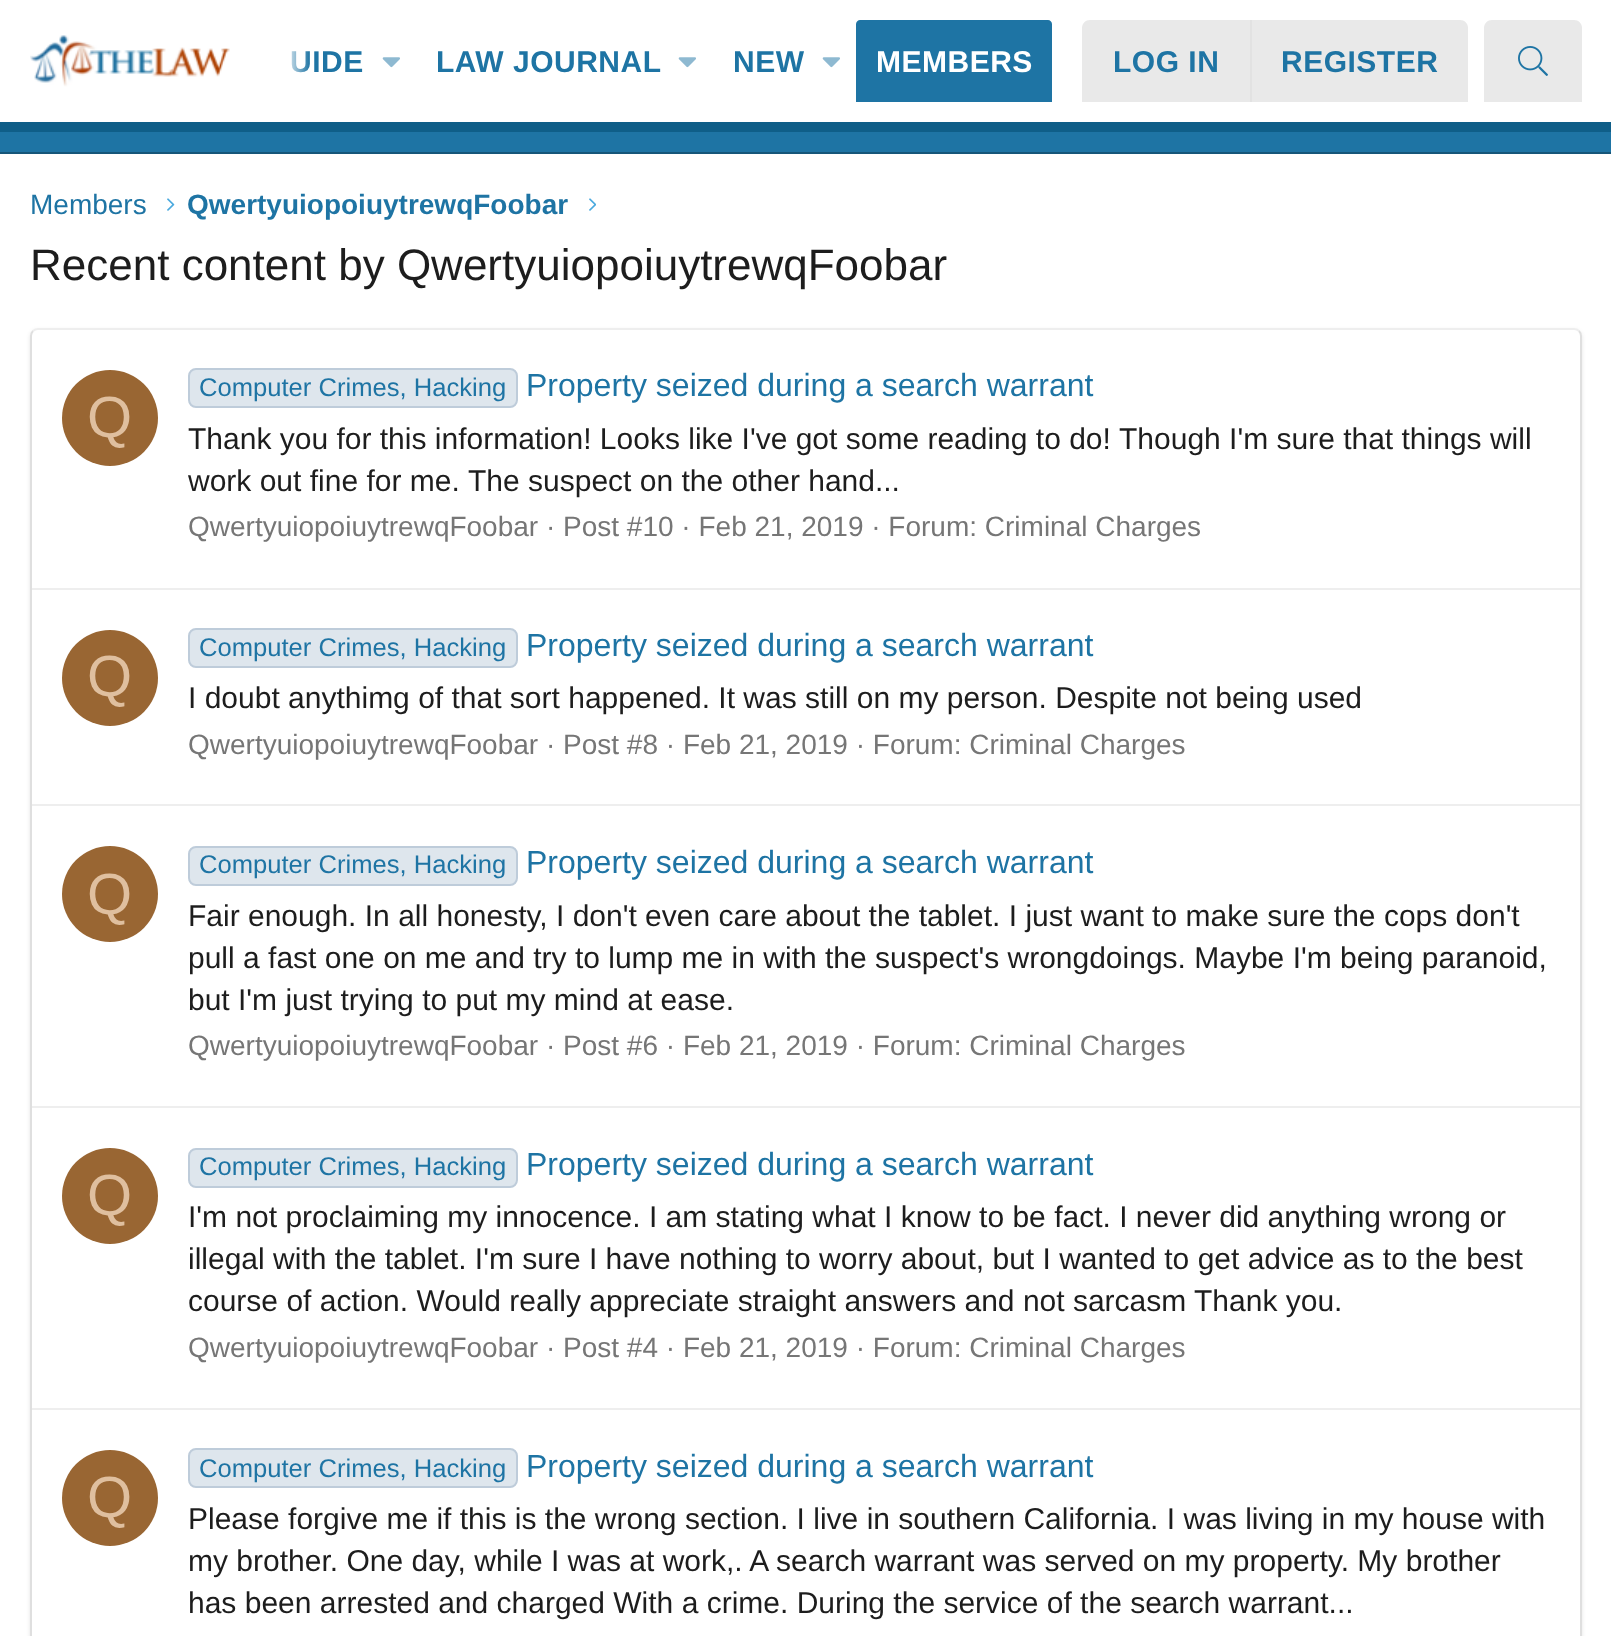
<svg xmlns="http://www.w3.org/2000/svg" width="1611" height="1636">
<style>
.a{font:bold 30px Liberation Sans;letter-spacing:0.5px;fill:#1e74a4}
.b{font:bold 30px Liberation Sans;letter-spacing:0.5px;fill:#fff}
.c{font:28px Liberation Sans;fill:#1e74a4}
.d{font:bold 28px Liberation Sans;fill:#1e74a4}
.e{font:44px Liberation Sans;fill:#1d1d1d}
.f{font:58px Liberation Sans;fill:#dfbf9f}
.g{font:25.6px Liberation Sans;fill:#1e74a4}
.h{font:32px Liberation Sans;fill:#1e74a4}
.i{font:30px Liberation Sans;fill:#1d1d1d}
.j{font:28px Liberation Sans;fill:#767676}
</style>
<defs>
<linearGradient id="g1" gradientUnits="userSpaceOnUse" x1="230" y1="61" x2="310" y2="61"><stop offset="0.66" stop-color="#fff"/><stop offset="1" stop-color="#fff" stop-opacity="0"/></linearGradient>
</defs>
<rect width="100%" height="100%" fill="#fff"/>
<path fill="#0f5e88" d="M0 122h1611v10H0z"/>
<image href="1.png" x="30" y="35" width="200" height="52"/>
<image href="2.png" x="382" y="57" width="18" height="11"/>
<image href="2.png" x="678" y="57" width="18" height="11"/>
<image href="2.png" x="822" y="57" width="18" height="11"/>
<path fill="#1e74a4" d="M860 20h188c2 0 4 2 4 4v78h-196v-78c0-2 2-4 4-4z"/>
<path fill="#e9e9e9" d="M1090 20h370c4.5 0 8 3.5 8 8v74h-386v-74c0-4.5 3.5-8 8-8z"/>
<path fill="#e2e2e2" d="M1250 20h2v82H1250z"/>
<path fill="#e9e9e9" d="M1492 20h82c4.5 0 8 3.5 8 8v74h-98v-74c0-4.5 3.5-8 8-8z"/>
<image href="3.png" x="1518" y="46" width="30" height="30"/>
<path fill="#1e74a4" d="M0 132h1611v20H0z"/>
<path fill="#165679" d="M0 152h1611v2H0z"/>
<image href="4.png" x="167" y="198" width="8" height="13"/>
<image href="5.png" x="589" y="198" width="7" height="13"/>
<rect fill="#0000001a" filter="blur(2px)" x="30" y="330" width="1552" height="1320" rx="8"/>
<rect fill="#fff" x="30" y="328" width="1552" height="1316" rx="8"/>
<path fill="none" stroke="#eee" stroke-width="2" d="M33 331c1.5-1.5 3-2 5-2h1536c2 0 3.5 .5 5 2"/>
<path fill="none" stroke="#dfdfdf" stroke-width="2" d="M1579 331c1.5 1.5 2 3 2 5v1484c0 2-.5 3.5-2 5"/>
<path fill="none" stroke="#dfdfdf" stroke-width="2" d="M33 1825c-1.5-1.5-2-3-2-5v-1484c0-2 .5-3.5 2-5"/>
<circle fill="#963" cx="110" cy="418" r="48"/>
<rect fill="#dee6ed" stroke="#beccda" stroke-width="2" x="189" y="369" width="328" height="38" rx="7"/>
<path fill="#eee" d="M32 588h1548v2H32z"/>
<circle fill="#963" cx="110" cy="678" r="48"/>
<rect fill="#dee6ed" stroke="#beccda" stroke-width="2" x="189" y="629" width="328" height="38" rx="7"/>
<path fill="#eee" d="M32 804h1548v2H32z"/>
<circle fill="#963" cx="110" cy="894" r="48"/>
<rect fill="#dee6ed" stroke="#beccda" stroke-width="2" x="189" y="847" width="328" height="38" rx="7"/>
<path fill="#eee" d="M32 1106h1548v2H32z"/>
<circle fill="#963" cx="110" cy="1196" r="48"/>
<rect fill="#dee6ed" stroke="#beccda" stroke-width="2" x="189" y="1149" width="328" height="38" rx="7"/>
<path fill="#eee" d="M32 1408h1548v2H32z"/>
<circle fill="#963" cx="110" cy="1498" r="48"/>
<rect fill="#dee6ed" stroke="#beccda" stroke-width="2" x="189" y="1449" width="328" height="38" rx="7"/>
<text class="a" x="290" y="72">UIDE</text>
<text class="a" x="436" y="72">LAW JOURNAL</text>
<text class="a" x="733" y="72">NEW</text>
<text class="b" x="876" y="72">MEMBERS</text>
<path fill="url(#g1)" d="M291 51h18v22H291z"/>
<text class="a" x="1113" y="72">LOG IN</text>
<text class="a" x="1281" y="72">REGISTER</text>
<text class="c" x="30" y="214">Members</text>
<text class="d" x="187" y="214">QwertyuiopoiuytrewqFoobar</text>
<text class="e" x="30" y="280">Recent content by QwertyuiopoiuytrewqFoobar</text>
<text class="f" x="87" y="437">Q</text>
<text class="g" x="199" y="396">Computer Crimes, Hacking</text>
<text class="h" x="526" y="396">Property seized during a search warrant</text>
<text class="i" x="188" y="449">Thank you for this information! Looks like I've got some reading to do!</text>
<text class="i" x="1119" y="449">Though I'm sure that things will</text>
<text class="i" x="188" y="491">work out fine for me.</text>
<text class="i" x="468" y="491">The suspect on the other hand...</text>
<text class="j" x="188" y="536">QwertyuiopoiuytrewqFoobar · Post #10 · Feb 21, 2019 · Forum: Criminal Charges</text>
<text class="f" x="87" y="696">Q</text>
<text class="g" x="199" y="656">Computer Crimes, Hacking</text>
<text class="h" x="526" y="656">Property seized during a search warrant</text>
<text class="i" x="188" y="708">I doubt anythimg of that sort happened. It was still on my person. Despite not being used</text>
<text class="j" x="188" y="754">QwertyuiopoiuytrewqFoobar · Post #8 · Feb 21, 2019 · Forum: Criminal Charges</text>
<text class="f" x="87" y="914">Q</text>
<text class="g" x="199" y="873">Computer Crimes, Hacking</text>
<text class="h" x="526" y="873">Property seized during a search warrant</text>
<text class="i" x="188" y="926">Fair enough. In all honesty, I don't even care about the tablet. I just want to make sure the cops don't</text>
<text class="i" x="188" y="968">pull a fast one on me and try to lump me in with the suspect's wrongdoings. Maybe I'm being paranoid,</text>
<text class="i" x="188" y="1010">but I'm just trying to put my mind at ease.</text>
<text class="j" x="188" y="1055">QwertyuiopoiuytrewqFoobar · Post #6 · Feb 21, 2019 · Forum: Criminal Charges</text>
<text class="f" x="87" y="1215">Q</text>
<text class="g" x="199" y="1175">Computer Crimes, Hacking</text>
<text class="h" x="526" y="1175">Property seized during a search warrant</text>
<text class="i" x="188" y="1227">I'm not proclaiming my innocence. I am stating what I know to be fact. I never did anything wrong or</text>
<text class="i" x="188" y="1269">illegal with the tablet. I'm sure I have nothing to worry about, but I wanted to get advice as to the best</text>
<text class="i" x="188" y="1311">course of action. Would really appreciate straight answers and not sarcasm</text>
<text class="i" x="1194" y="1311">Thank you.</text>
<text class="j" x="188" y="1357">QwertyuiopoiuytrewqFoobar · Post #4 · Feb 21, 2019 · Forum: Criminal Charges</text>
<text class="f" x="87" y="1517">Q</text>
<text class="g" x="199" y="1477">Computer Crimes, Hacking</text>
<text class="h" x="526" y="1477">Property seized during a search warrant</text>
<text class="i" x="188" y="1529">Please forgive me if this is the wrong section. I live in southern California. I was living in my house with</text>
<text class="i" x="188" y="1571">my brother. One day, while I was at work,. A search warrant was served on my property. My brother</text>
<text class="i" x="188" y="1613">has been arrested and charged With a crime. During the service of the search warrant...</text>
</svg>
